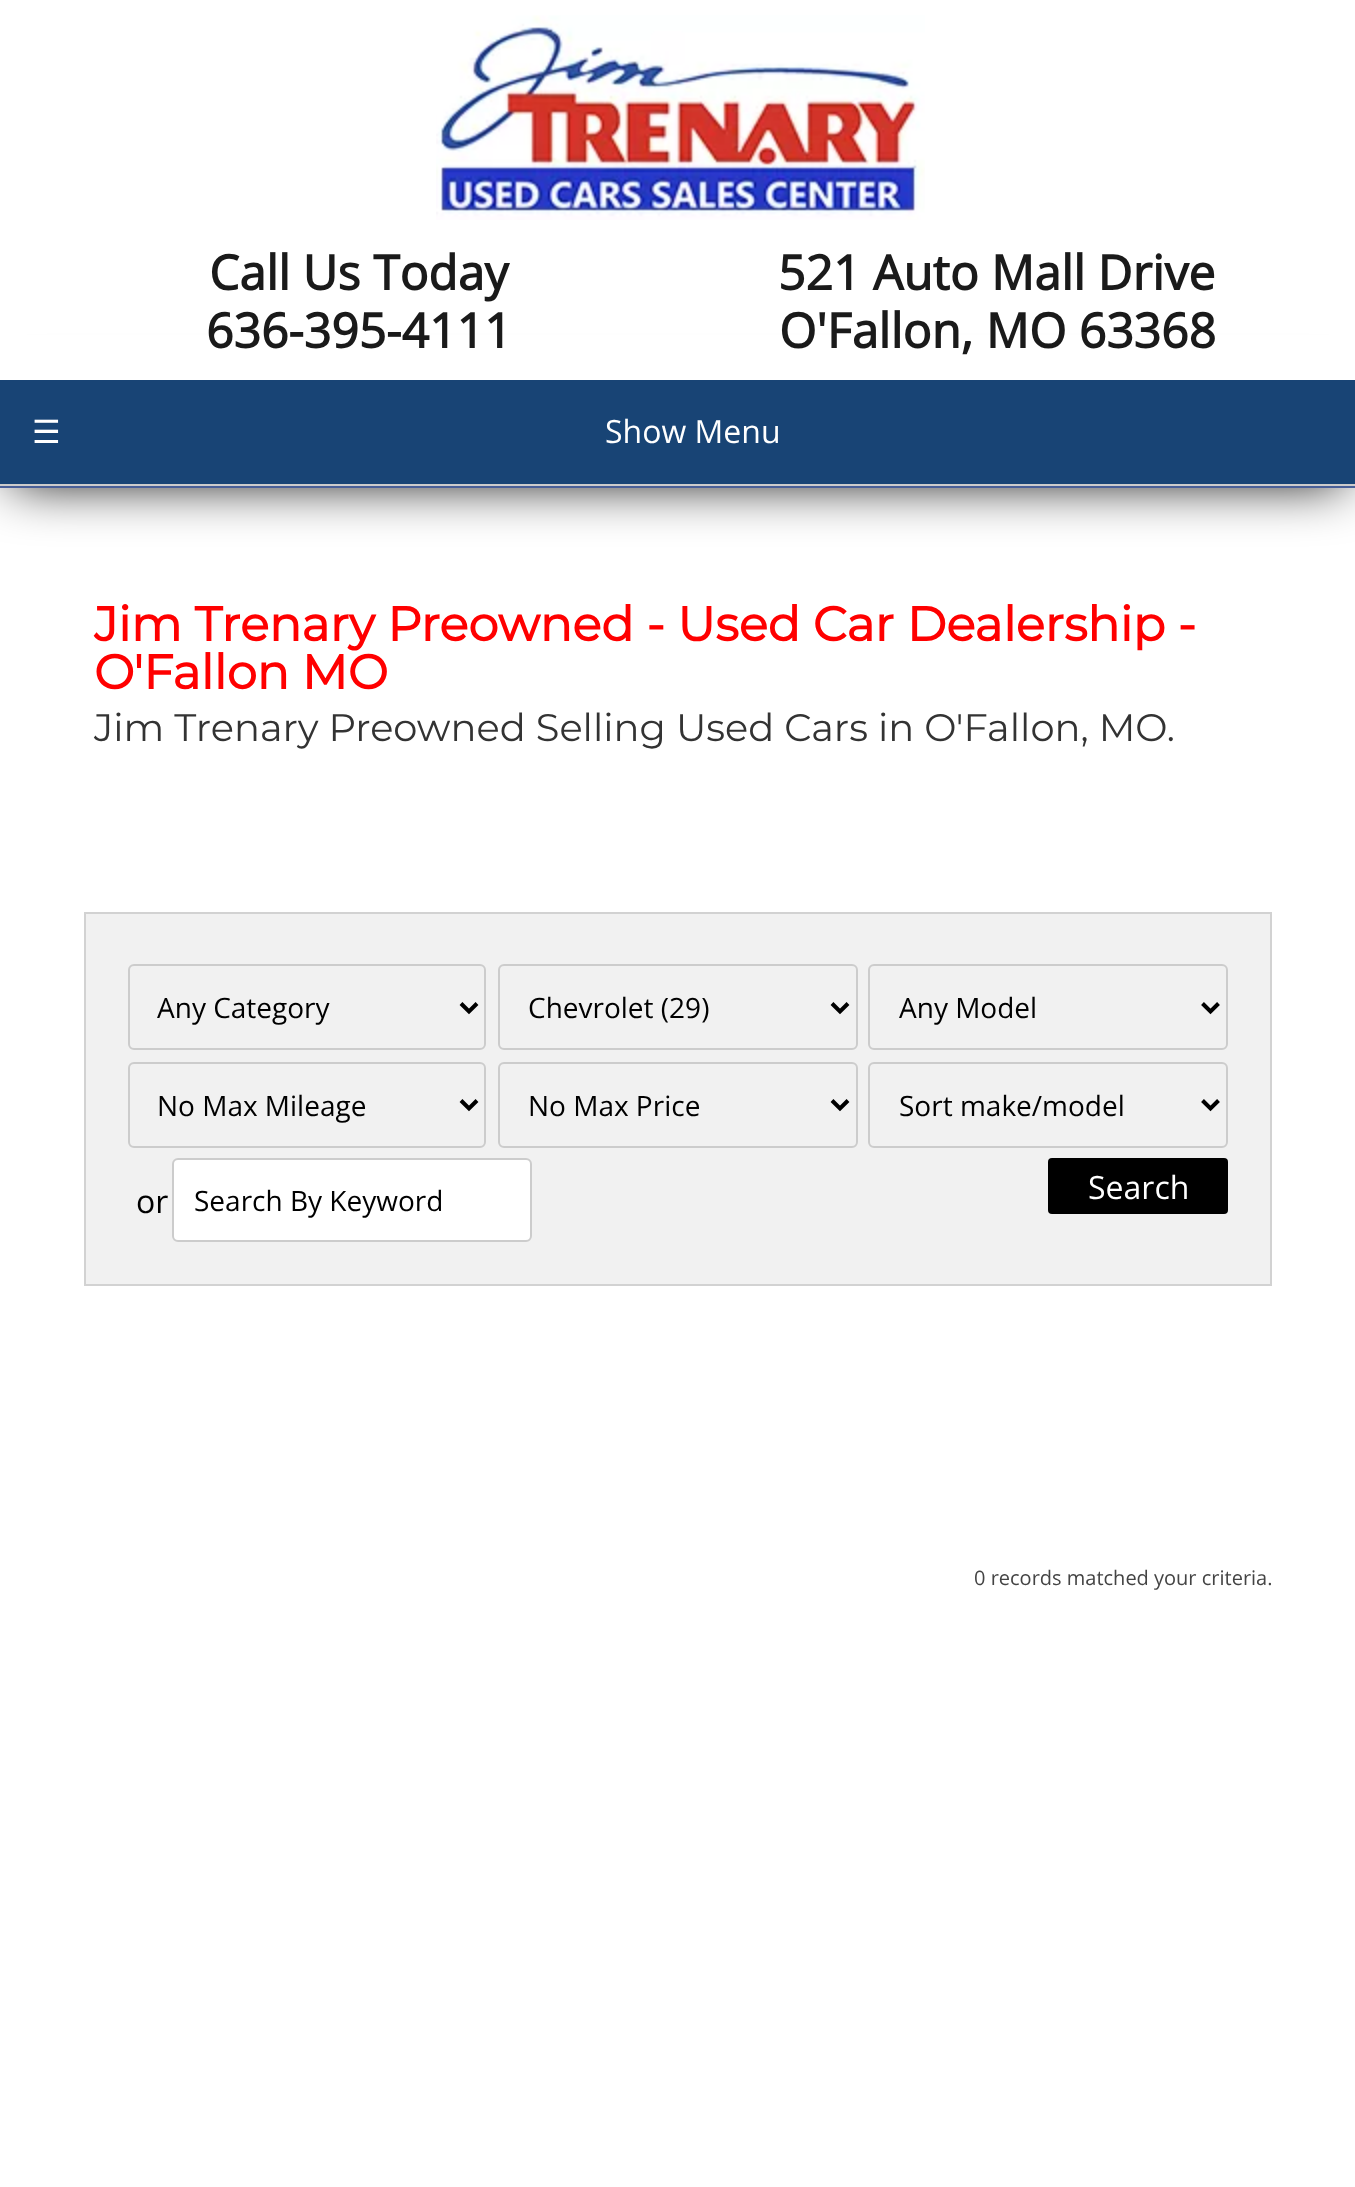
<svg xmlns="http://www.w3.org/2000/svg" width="1355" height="2187">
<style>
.a{font:bold 48px Open Sans;fill:#1a1a1a}
.b{font:32px DejaVu Sans;fill:#fff}
.c{font:32px Open Sans;fill:#fff}
.d{font:bold 48px Montserrat;fill:#f00}
.e{font:100 38.4px Montserrat;fill:#333}
.f{font:28px Open Sans;fill:#000}
.g{font:32px Open Sans;fill:#000}
.h{font:20px Open Sans;fill:#444}
</style>
<rect width="100%" height="100%" fill="#fff"/>
<path fill="#000" filter="blur(27px)" d="M12 398h1332v84H12z"/>
<path fill="#fff" d="M0 335h1355v45H0z"/>
<image href="1.png" x="436" y="15" width="489" height="205"/>
<path fill="#485f98" d="M0 486h1355v2H0z"/>
<path fill="#184475" d="M0 380h1355v104H0z"/>
<path fill="#ccc" d="M0 484h1355v2H0z"/>
<path fill="#f1f1f1" stroke="#d2d2d2" stroke-width="2" d="M85 913h1186v372H85z"/>
<rect fill="none" stroke="#ccc" stroke-width="2" x="129" y="965" width="356" height="84" rx="5"/>
<path fill="none" stroke="#000" stroke-width="4" d="M461 1003.5l8 8l8-8"/>
<rect fill="none" stroke="#ccc" stroke-width="2" x="499" y="965" width="358" height="84" rx="5"/>
<path fill="none" stroke="#000" stroke-width="4" d="M832 1003.5l8 8l8-8"/>
<rect fill="none" stroke="#ccc" stroke-width="2" x="869" y="965" width="358" height="84" rx="5"/>
<path fill="none" stroke="#000" stroke-width="4" d="M1202.5 1003.5l8 8l8-8"/>
<rect fill="none" stroke="#ccc" stroke-width="2" x="129" y="1063" width="356" height="84" rx="5"/>
<path fill="none" stroke="#000" stroke-width="4" d="M461 1100.5l8 8l8-8"/>
<rect fill="none" stroke="#ccc" stroke-width="2" x="499" y="1063" width="358" height="84" rx="5"/>
<path fill="none" stroke="#000" stroke-width="4" d="M832 1100.5l8 8l8-8"/>
<rect fill="none" stroke="#ccc" stroke-width="2" x="869" y="1063" width="358" height="84" rx="5"/>
<path fill="none" stroke="#000" stroke-width="4" d="M1202.5 1100.5l8 8l8-8"/>
<rect fill="#fff" stroke="#ccc" stroke-width="2" x="173" y="1159" width="358" height="82" rx="5"/>
<rect fill="#000" x="1048" y="1158" width="180" height="56" rx="4"/>
<text class="a" x="209" y="290">Call Us Today</text>
<text class="a" x="206" y="348">636-395-4111</text>
<text class="a" x="778" y="290">521 Auto Mall Drive</text>
<text class="a" x="779" y="348">O'Fallon, MO 63368</text>
<text class="b" x="32" y="443">☰</text>
<text class="c" x="605" y="443">Show Menu</text>
<text class="d" x="94" y="641">Jim Trenary Preowned - Used Car Dealership -</text>
<text class="d" x="94" y="689">O'Fallon MO</text>
<text class="e" x="94" y="741">Jim Trenary Preowned Selling Used Cars in O'Fallon, MO.</text>
<text class="f" x="157" y="1018">Any Category</text>
<text class="f" x="528" y="1018">Chevrolet (29)</text>
<text class="f" x="899" y="1018">Any Model</text>
<text class="f" x="157" y="1116">No Max Mileage</text>
<text class="f" x="528" y="1116">No Max Price</text>
<text class="f" x="899" y="1116">Sort make/model</text>
<text class="g" x="136" y="1213">or</text>
<text class="f" x="194" y="1211">Search By Keyword</text>
<text class="c" x="1088" y="1199">Search</text>
<text class="h" x="974" y="1585">0 records matched your criteria.</text>
</svg>
